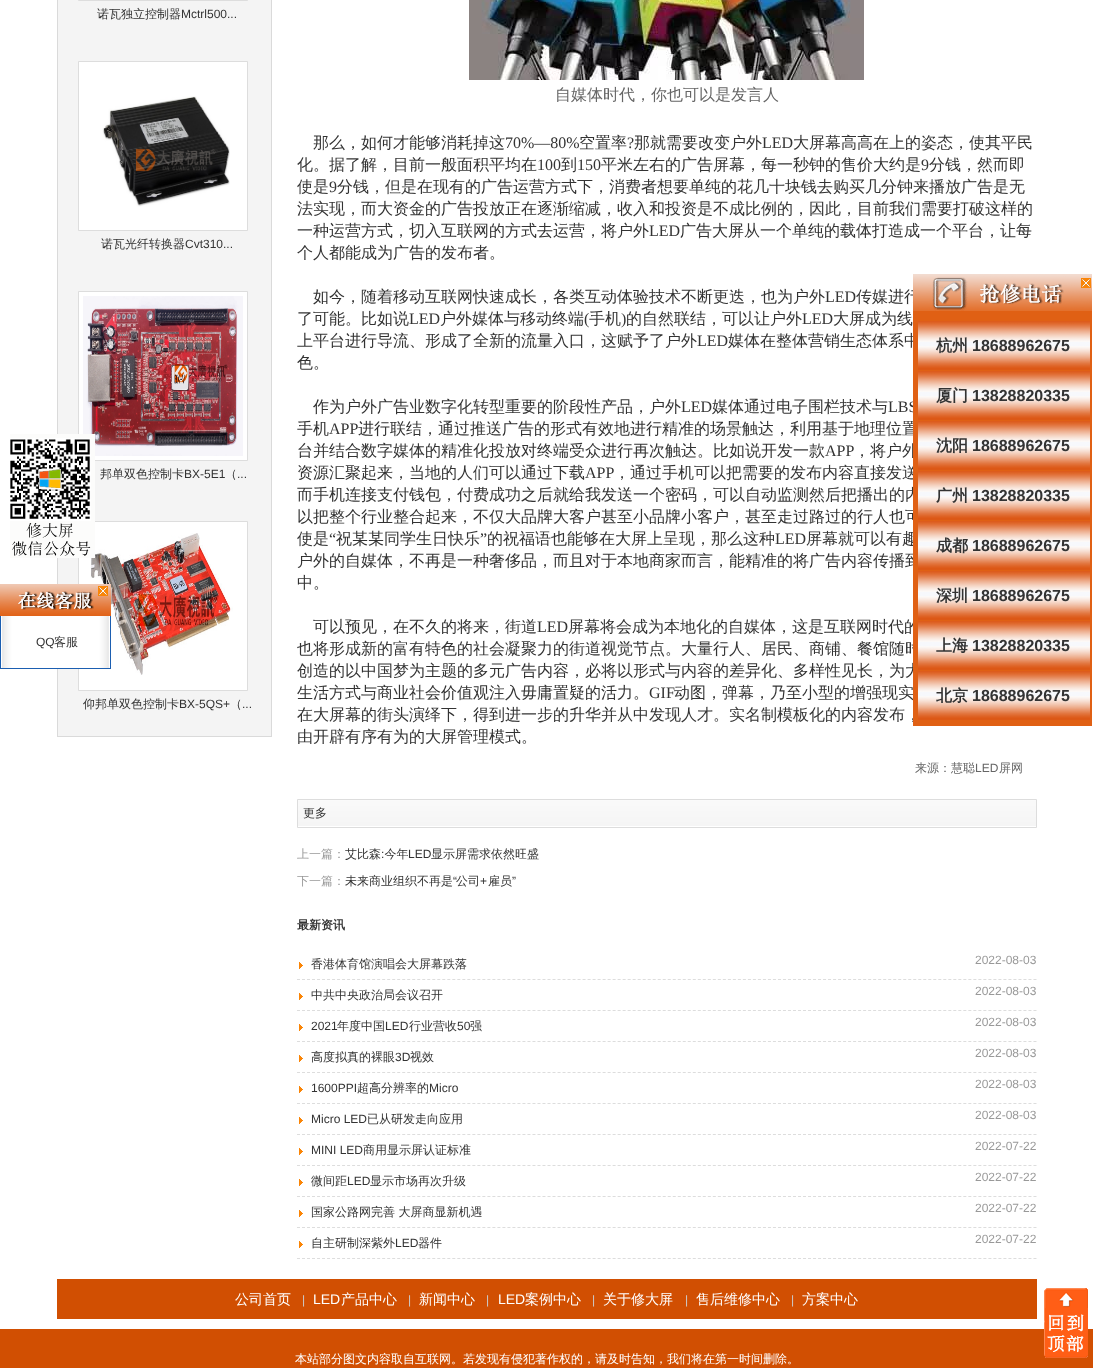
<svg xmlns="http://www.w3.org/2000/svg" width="1093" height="1368">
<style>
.a{font:500 12px WenQuanYi Zen Hei;fill:#333}
.b{font:12px Liberation Sans;fill:#333}
.c{font:500 16px WenQuanYi Zen Hei;fill:#666}
.d{font:500 16px WenQuanYi Zen Hei;fill:#333}
.e{font:16px Liberation Serif;fill:#333}
.f{font:500 12px WenQuanYi Zen Hei;fill:#666}
.g{font:12px Liberation Sans;fill:#666}
.h{font:500 12px WenQuanYi Zen Hei;fill:#999}
.i{font:bold 12px WenQuanYi Zen Hei;fill:#333}
.j{font:12px Liberation Sans;fill:#999}
.k{font:bold 16px WenQuanYi Zen Hei;fill:#333}
.l{font:bold 16px Liberation Sans;fill:#333}
.m{font:500 14px WenQuanYi Zen Hei;fill:#fff}
.n{font:12px Liberation Sans;fill:#ccc}
.o{font:14px Liberation Sans;fill:#fff}
.p{font:500 12px WenQuanYi Zen Hei;fill:#fff}
</style>
<rect width="100%" height="100%" fill="#fff"/>
<path fill="#f4f4f4" d="M58 0h213v736H58z"/>
<path fill="#dadada" d="M271 0h1v737H271z"/>
<path fill="#dadada" d="M57 736h215v1H57z"/>
<path fill="#dadada" d="M57 0h1v737H57z"/>
<path fill="none" stroke="#ddd" d="M78.5 -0.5h169v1H78.5z"/>
<path fill="#fff" d="M79 62h168v168H79z"/>
<image href="1.png" x="102" y="96" width="128" height="111"/>
<path fill="none" stroke="#ddd" d="M78.5 61.5h169v169H78.5z"/>
<path fill="#fff" d="M79 292h168v168H79z"/>
<image href="2.png" x="83" y="296" width="160" height="160"/>
<path fill="none" stroke="#ddd" d="M78.5 291.5h169v169H78.5z"/>
<path fill="#fff" d="M79 522h168v168H79z"/>
<image href="3.png" x="91" y="533" width="142" height="142"/>
<path fill="none" stroke="#ddd" d="M78.5 521.5h169v169H78.5z"/>
<image href="4.png" x="469" y="0" width="395" height="80"/>
<image href="5.png" x="298" y="800" width="738" height="26"/>
<path fill="none" stroke="#ddd" d="M297.5 799.5h739v28H297.5z"/>
<path fill="none" stroke="#ddd" stroke-dasharray="3 2.01" d="M297 979.5h740"/>
<image href="6.png" x="299" y="962" width="4" height="7"/>
<path fill="none" stroke="#ddd" stroke-dasharray="3 2.01" d="M297 1010.5h740"/>
<image href="6.png" x="299" y="993" width="4" height="7"/>
<path fill="none" stroke="#ddd" stroke-dasharray="3 2.01" d="M297 1041.5h740"/>
<image href="6.png" x="299" y="1024" width="4" height="7"/>
<path fill="none" stroke="#ddd" stroke-dasharray="3 2.01" d="M297 1072.5h740"/>
<image href="6.png" x="299" y="1055" width="4" height="7"/>
<path fill="none" stroke="#ddd" stroke-dasharray="3 2.01" d="M297 1103.5h740"/>
<image href="6.png" x="299" y="1086" width="4" height="7"/>
<path fill="none" stroke="#ddd" stroke-dasharray="3 2.01" d="M297 1134.5h740"/>
<image href="6.png" x="299" y="1117" width="4" height="7"/>
<path fill="none" stroke="#ddd" stroke-dasharray="3 2.01" d="M297 1165.5h740"/>
<image href="6.png" x="299" y="1148" width="4" height="7"/>
<path fill="none" stroke="#ddd" stroke-dasharray="3 2.01" d="M297 1196.5h740"/>
<image href="6.png" x="299" y="1179" width="4" height="7"/>
<path fill="none" stroke="#ddd" stroke-dasharray="3 2.01" d="M297 1227.5h740"/>
<image href="6.png" x="299" y="1210" width="4" height="7"/>
<path fill="none" stroke="#ddd" stroke-dasharray="3 2.01" d="M297 1258.5h740"/>
<image href="6.png" x="299" y="1241" width="4" height="7"/>
<image href="7.png" x="10" y="434" width="85" height="124"/>
<image href="11.png" x="0" y="584" width="111" height="32"/>
<image href="9.png" x="98" y="586" width="10" height="10"/>
<image href="12.png" x="2" y="616" width="107" height="52"/>
<path fill="#1b5eb1" d="M110 616h1v53H110z"/>
<path fill="#1b5eb1" d="M0 668h111v1H0z"/>
<path fill="#1b5eb1" d="M0 616h1v53H0z"/>
<path fill="#d14f02" d="M57 1279h980v40H57z"/>
<path fill="#d14f02" d="M0 1329h1093v39H0z"/>
<image href="13.png" x="1044" y="1288" width="44" height="70"/>
<text class="a" x="97" y="18">诺瓦独立控制器</text>
<text class="b" x="181" y="18">Mctrl500...</text>
<text class="a" x="101" y="248">诺瓦光纤转换器</text>
<text class="b" x="185" y="248">Cvt310...</text>
<text class="a" x="100" y="478">邦单双色控制卡</text>
<text class="b" x="184" y="478">BX-5E1</text>
<text class="a" x="225" y="478">（</text>
<text class="b" x="237" y="478">...</text>
<text class="a" x="83" y="708">仰邦单双色控制卡</text>
<text class="b" x="179" y="708">BX-5QS+</text>
<text class="a" x="230" y="708">（</text>
<text class="b" x="242" y="708">...</text>
<text class="c" x="555" y="100">自媒体时代，你也可以是发言人</text>
<text class="d" x="313" y="148">那么，如何才能够消耗掉这</text>
<text class="e" x="505" y="148">70%—80%</text>
<text class="d" x="579" y="148">空置率</text>
<text class="e" x="627" y="148">?</text>
<text class="d" x="634" y="148">那就需要改变户外</text>
<text class="e" x="762" y="148">LED</text>
<text class="d" x="793" y="148">大屏幕高高在上的姿态，使其平民</text>
<text class="d" x="297" y="170">化。据了解，目前一般面积平均在</text>
<text class="e" x="537" y="170">100</text>
<text class="d" x="561" y="170">到</text>
<text class="e" x="577" y="170">150</text>
<text class="d" x="601" y="170">平米左右的广告屏幕，每一秒钟的售价大约是</text>
<text class="e" x="921" y="170">9</text>
<text class="d" x="929" y="170">分钱，然而即</text>
<text class="d" x="297" y="192">使是</text>
<text class="e" x="329" y="192">9</text>
<text class="d" x="337" y="192">分钱，但是在现有的广告运营方式下，消费者想要单纯的花几十块钱去购买几分钟来播放广告是无</text>
<text class="d" x="297" y="214">法实现，而大资金的广告投放正在逐渐缩减，收入和投资是不成比例的，因此，目前我们需要打破这样的</text>
<text class="d" x="297" y="236">一种运营方式，切入互联网的方式去运营，将户外</text>
<text class="e" x="649" y="236">LED</text>
<text class="d" x="680" y="236">广告大屏从一个单纯的载体打造成一个平台，让每</text>
<text class="d" x="297" y="258">个人都能成为广告的发布者。</text>
<text class="d" x="313" y="302">如今，随着移动互联网快速成长，各类互动体验技术不断更迭，也为户外</text>
<text class="e" x="825" y="302">LED</text>
<text class="d" x="856" y="302">传媒进行</text>
<text class="d" x="297" y="324">了可能。比如说</text>
<text class="e" x="409" y="324">LED</text>
<text class="d" x="440" y="324">户外媒体与移动终端</text>
<text class="e" x="584" y="324">(</text>
<text class="d" x="589" y="324">手机</text>
<text class="e" x="621" y="324">)</text>
<text class="d" x="626" y="324">的自然联结，可以让户外</text>
<text class="e" x="802" y="324">LED</text>
<text class="d" x="833" y="324">大屏成为线</text>
<text class="d" x="297" y="346">上平台进行导流、形成了全新的流量入口，这赋予了户外</text>
<text class="e" x="697" y="346">LED</text>
<text class="d" x="728" y="346">媒体在整体营销生态体系中</text>
<text class="d" x="297" y="368">色。</text>
<text class="d" x="313" y="412">作为户外广告业数字化转型重要的阶段性产品，户外</text>
<text class="e" x="681" y="412">LED</text>
<text class="d" x="712" y="412">媒体通过电子围栏技术与</text>
<text class="e" x="888" y="412">LBS</text>
<text class="d" x="297" y="434">手机</text>
<text class="e" x="329" y="434">APP</text>
<text class="d" x="358" y="434">进行联结，通过推送广告的形式有效地进行精准的场景触达，利用基于地理位置</text>
<text class="d" x="297" y="456">台并结合数字媒体的精准化投放对终端受众进行再次触达。比如说开发一款</text>
<text class="e" x="825" y="456">APP</text>
<text class="d" x="854" y="456">，将户外</text>
<text class="d" x="297" y="478">资源汇聚起来，当地的人们可以通过下载</text>
<text class="e" x="585" y="478">APP</text>
<text class="d" x="614" y="478">，通过手机可以把需要的发布内容直接发送</text>
<text class="d" x="297" y="500">而手机连接支付钱包，付费成功之后就给我发送一个密码，可以自动监测然后把播出的内</text>
<text class="d" x="297" y="522">以把整个行业整合起来，不仅大品牌大客户甚至小品牌小客户，甚至走过路过的行人也可</text>
<text class="d" x="297" y="544">使是</text>
<text class="e" x="329" y="544">“</text>
<text class="d" x="336" y="544">祝某某同学生日快乐</text>
<text class="e" x="480" y="544">”</text>
<text class="d" x="487" y="544">的祝福语也能够在大屏上呈现，那么这种</text>
<text class="e" x="775" y="544">LED</text>
<text class="d" x="806" y="544">屏幕就可以有趣</text>
<text class="d" x="297" y="566">户外的自媒体，不再是一种奢侈品，而且对于本地商家而言，能精准的将广告内容传播到</text>
<text class="d" x="297" y="588">中。</text>
<text class="d" x="313" y="632">可以预见，在不久的将来，街道</text>
<text class="e" x="537" y="632">LED</text>
<text class="d" x="568" y="632">屏幕将会成为本地化的自媒体，这是互联网时代的</text>
<text class="d" x="297" y="654">也将形成新的富有特色的社会凝聚力的街道视觉节点。大量行人、居民、商铺、餐馆随时</text>
<text class="d" x="297" y="676">创造的以中国梦为主题的多元广告内容，必将以形式与内容的差异化、多样性见长，为大</text>
<text class="d" x="297" y="698">生活方式与商业社会价值观注入毋庸置疑的活力。</text>
<text class="e" x="649" y="698">GIF</text>
<text class="d" x="674" y="698">动图，弹幕，乃至小型的增强现实</text>
<text class="d" x="297" y="720">在大屏幕的街头演绎下，得到进一步的升华并从中发现人才。实名制模板化的内容发布，</text>
<text class="d" x="297" y="742">由开辟有序有为的大屏管理模式。</text>
<text class="f" x="915" y="772">来源：慧聪</text>
<text class="g" x="975" y="772">LED</text>
<text class="f" x="999" y="772">屏网</text>
<text class="a" x="303" y="817">更多</text>
<text class="h" x="297" y="858">上一篇：</text>
<text class="a" x="345" y="858">艾比森 今年</text>
<text class="b" x="408" y="858">LED</text>
<text class="a" x="431" y="858">显示屏需求依然旺盛</text>
<text class="b" x="381" y="858">:</text>
<text class="h" x="297" y="885">下一篇：</text>
<text class="a" x="345" y="885">未来商业组织不再是</text>
<text class="b" x="453" y="885">“</text>
<text class="a" x="456" y="885">公司</text>
<text class="b" x="480" y="885">+</text>
<text class="a" x="488" y="885">雇员</text>
<text class="b" x="512" y="885">”</text>
<text class="i" x="297" y="929">最新资讯</text>
<text class="a" x="311" y="968">香港体育馆演唱会大屏幕跌落</text>
<text class="j" x="975" y="964">2022-08-03</text>
<text class="a" x="311" y="999">中共中央政治局会议召开</text>
<text class="j" x="975" y="995">2022-08-03</text>
<text class="b" x="311" y="1030">2021</text>
<text class="a" x="337" y="1030">年度中国</text>
<text class="b" x="385" y="1030">LED</text>
<text class="a" x="409" y="1030">行业营收</text>
<text class="b" x="457" y="1030">50</text>
<text class="a" x="470" y="1030">强</text>
<text class="j" x="975" y="1026">2022-08-03</text>
<text class="a" x="311" y="1061">高度拟真的裸眼</text>
<text class="b" x="395" y="1061">3D</text>
<text class="a" x="410" y="1061">视效</text>
<text class="j" x="975" y="1057">2022-08-03</text>
<text class="b" x="311" y="1092">1600PPI</text>
<text class="a" x="357" y="1092">超高分辨率的</text>
<text class="b" x="429" y="1092">Micro</text>
<text class="j" x="975" y="1088">2022-08-03</text>
<text class="b" x="311" y="1123">Micro LED</text>
<text class="a" x="367" y="1123">已从研发走向应用</text>
<text class="j" x="975" y="1119">2022-08-03</text>
<text class="b" x="311" y="1154">MINI LED</text>
<text class="a" x="363" y="1154">商用显示屏认证标准</text>
<text class="j" x="975" y="1150">2022-07-22</text>
<text class="a" x="311" y="1185">微间距</text>
<text class="b" x="347" y="1185">LED</text>
<text class="a" x="370" y="1185">显示市场再次升级</text>
<text class="j" x="975" y="1181">2022-07-22</text>
<text class="a" x="311" y="1216">国家公路网完善 大屏商显新机遇</text>
<text class="j" x="975" y="1212">2022-07-22</text>
<text class="a" x="311" y="1247">自主研制深紫外</text>
<text class="b" x="395" y="1247">LED</text>
<text class="a" x="418" y="1247">器件</text>
<text class="j" x="975" y="1243">2022-07-22</text>
<path fill="#e06014" d="M913 311h179v415H913z"/>
<image href="8.png" x="913" y="274" width="179" height="37"/>
<image href="9.png" x="1081" y="278" width="10" height="10"/>
<image href="10.png" x="918" y="321" width="172" height="49"/>
<text class="k" x="936" y="351">杭州</text>
<text class="l" x="972" y="351">18688962675</text>
<image href="10.png" x="918" y="371" width="172" height="49"/>
<text class="k" x="936" y="401">厦门</text>
<text class="l" x="972" y="401">13828820335</text>
<image href="10.png" x="918" y="421" width="172" height="49"/>
<text class="k" x="936" y="451">沈阳</text>
<text class="l" x="972" y="451">18688962675</text>
<image href="10.png" x="918" y="471" width="172" height="49"/>
<text class="k" x="936" y="501">广州</text>
<text class="l" x="972" y="501">13828820335</text>
<image href="10.png" x="918" y="521" width="172" height="49"/>
<text class="k" x="936" y="551">成都</text>
<text class="l" x="972" y="551">18688962675</text>
<image href="10.png" x="918" y="571" width="172" height="49"/>
<text class="k" x="936" y="601">深圳</text>
<text class="l" x="972" y="601">18688962675</text>
<image href="10.png" x="918" y="621" width="172" height="49"/>
<text class="k" x="936" y="651">上海</text>
<text class="l" x="972" y="651">13828820335</text>
<image href="10.png" x="918" y="671" width="172" height="49"/>
<text class="k" x="936" y="701">北京</text>
<text class="l" x="972" y="701">18688962675</text>
<text class="b" x="36" y="646">QQ</text>
<text class="a" x="54" y="646">客服</text>
<text class="m" x="235" y="1304">公司首页</text>
<text class="n" x="302" y="1304">|</text>
<text class="o" x="313" y="1304">LED</text>
<text class="m" x="341" y="1304">产品中心</text>
<text class="n" x="408" y="1304">|</text>
<text class="m" x="419" y="1304">新闻中心</text>
<text class="n" x="486" y="1304">|</text>
<text class="o" x="498" y="1304">LED</text>
<text class="m" x="525" y="1304">案例中心</text>
<text class="n" x="592" y="1304">|</text>
<text class="m" x="603" y="1304">关于修大屏</text>
<text class="n" x="685" y="1304">|</text>
<text class="m" x="696" y="1304">售后维修中心</text>
<text class="n" x="791" y="1304">|</text>
<text class="m" x="802" y="1304">方案中心</text>
<text class="p" x="295" y="1363">本站部分图文内容取自互联网。若发现有侵犯著作权的，请及时告知，我们将在第一时间删除。</text>
</svg>
